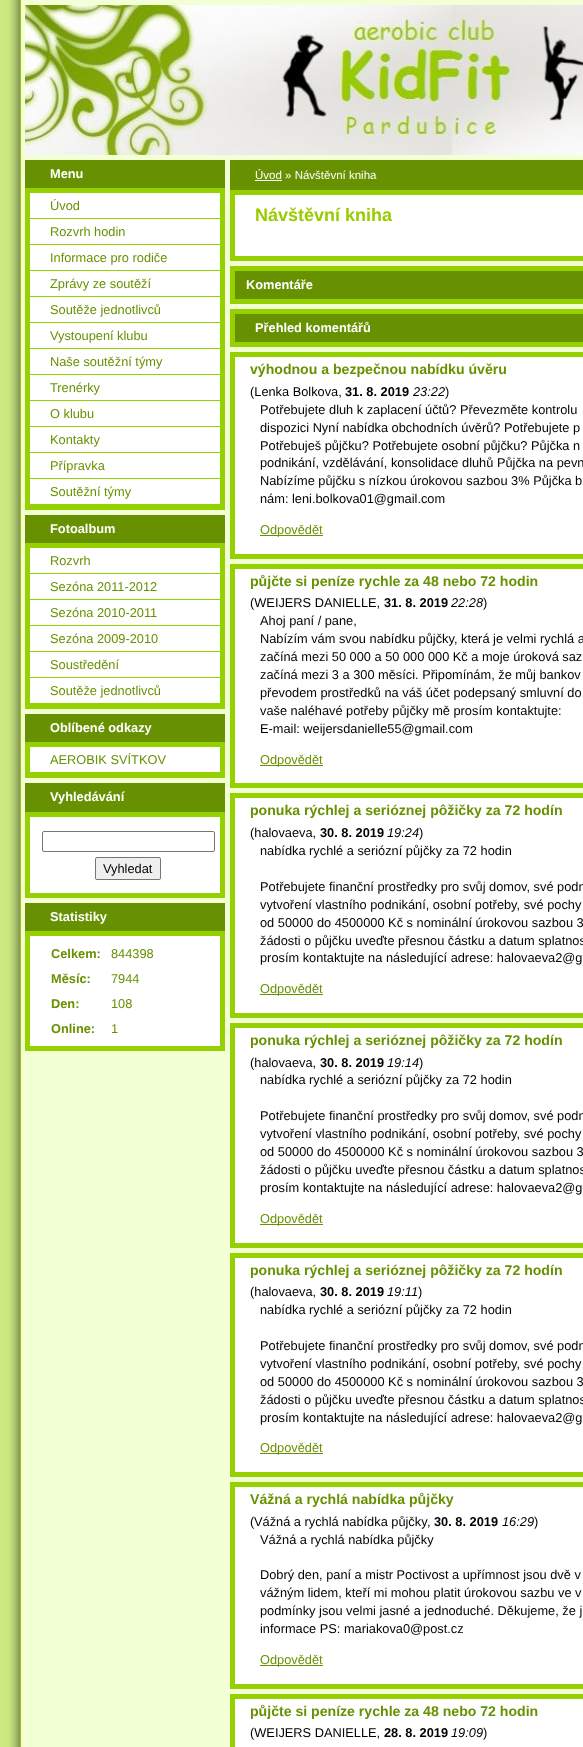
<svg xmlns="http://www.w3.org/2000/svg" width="583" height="1747">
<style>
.a{font:bold 12.8px Liberation Sans;fill:#fff}
.b{font:12.8px Liberation Sans;fill:#689101}
.c{font:12.8px Liberation Sans;fill:#000}
.d{font:bold 12.8px Liberation Sans;fill:#689101}
.e{font:11.5px Liberation Sans;fill:#fff}
.f{font:bold 18px Liberation Sans;fill:#9c0}
.g{font:bold 14.1px Liberation Sans;fill:#689101}
.h{font:bold 12.8px Liberation Sans;fill:#000}
.i{font:italic 12.8px Liberation Sans;fill:#000}
</style>
<rect width="100%" height="100%" fill="#fff"/>
<image href="1.png" x="0" y="0" width="583" height="1747"/>
<image href="2.png" x="25" y="5" width="558" height="150"/>
<path fill="#689101" d="M25 160h200v28H25z"/>
<path fill="#fff" d="M30 193h190v311H30z"/>
<path fill="none" stroke="#95d001" stroke-width="5" d="M27.5 190.5h195v317H27.5z"/>
<path fill="#95d001" d="M30 218h190v1H30z"/>
<path fill="#95d001" d="M30 244h190v1H30z"/>
<path fill="#95d001" d="M30 270h190v1H30z"/>
<path fill="#95d001" d="M30 296h190v1H30z"/>
<path fill="#95d001" d="M30 322h190v1H30z"/>
<path fill="#95d001" d="M30 348h190v1H30z"/>
<path fill="#95d001" d="M30 374h190v1H30z"/>
<path fill="#95d001" d="M30 400h190v1H30z"/>
<path fill="#95d001" d="M30 426h190v1H30z"/>
<path fill="#95d001" d="M30 452h190v1H30z"/>
<path fill="#95d001" d="M30 478h190v1H30z"/>
<path fill="#95d001" d="M30 504h190v1H30z"/>
<path fill="#689101" d="M25 515h200v28H25z"/>
<path fill="#fff" d="M30 548h190v155H30z"/>
<path fill="none" stroke="#95d001" stroke-width="5" d="M27.5 545.5h195v161H27.5z"/>
<path fill="#95d001" d="M30 573h190v1H30z"/>
<path fill="#95d001" d="M30 599h190v1H30z"/>
<path fill="#95d001" d="M30 625h190v1H30z"/>
<path fill="#95d001" d="M30 651h190v1H30z"/>
<path fill="#95d001" d="M30 677h190v1H30z"/>
<path fill="#95d001" d="M30 703h190v1H30z"/>
<path fill="#689101" d="M25 714h200v28H25z"/>
<path fill="#fff" d="M30 747h190v25H30z"/>
<path fill="none" stroke="#95d001" stroke-width="5" d="M27.5 744.5h195v31H27.5z"/>
<path fill="#95d001" d="M30 772h190v1H30z"/>
<path fill="#689101" d="M25 783h200v29H25z"/>
<path fill="#fff" stroke="#95d001" stroke-width="5" d="M27.5 814.5h195v81H27.5z"/>
<rect fill="none" stroke="#767676" x="42.5" y="831.5" width="172" height="20" rx="1.5"/>
<rect fill="#efefef" stroke="#767676" x="95.5" y="857.5" width="65" height="22" rx="1.5"/>
<path fill="#689101" d="M25 903h200v28H25z"/>
<path fill="#fff" stroke="#95d001" stroke-width="5" d="M27.5 933.5h195v115H27.5z"/>
<path fill="#689101" d="M230 160h353v30H230z"/>
<path fill="#fff" d="M255 180h27v1H255z"/>
<path fill="#fff" stroke="#95d001" stroke-width="5" d="M232.5 192.5h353v66H232.5z"/>
<path fill="#689101" stroke="#95d001" stroke-width="5" d="M232.5 268.5h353v33H232.5z"/>
<path fill="#689101" stroke="#95d001" stroke-width="5" d="M232.5 311.5h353v33H232.5z"/>
<path fill="#fff" stroke="#95d001" stroke-width="5" d="M232.5 354.5h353v202H232.5z"/>
<path fill="#689101" d="M260 535h63v1H260z"/>
<path fill="#fff" stroke="#95d001" stroke-width="5" d="M232.5 566.5h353v219H232.5z"/>
<path fill="#689101" d="M260 765h63v1H260z"/>
<path fill="#fff" stroke="#95d001" stroke-width="5" d="M232.5 795.5h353v220H232.5z"/>
<path fill="#689101" d="M260 994h63v1H260z"/>
<path fill="#fff" stroke="#95d001" stroke-width="5" d="M232.5 1025.5h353v220H232.5z"/>
<path fill="#689101" d="M260 1224h63v1H260z"/>
<path fill="#fff" stroke="#95d001" stroke-width="5" d="M232.5 1255.5h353v219H232.5z"/>
<path fill="#689101" d="M260 1453h63v1H260z"/>
<path fill="#fff" stroke="#95d001" stroke-width="5" d="M232.5 1484.5h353v202H232.5z"/>
<path fill="#689101" d="M260 1665h63v1H260z"/>
<path fill="#fff" stroke="#95d001" stroke-width="5" d="M232.5 1696.5h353v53H232.5z"/>
<text class="a" x="50" y="178">Menu</text>
<text class="b" x="50" y="210">Úvod</text>
<text class="b" x="50" y="236">Rozvrh hodin</text>
<text class="b" x="50" y="262">Informace pro rodiče</text>
<text class="b" x="50" y="288">Zprávy ze soutěží</text>
<text class="b" x="50" y="314">Soutěže jednotlivců</text>
<text class="b" x="50" y="340">Vystoupení klubu</text>
<text class="b" x="50" y="366">Naše soutěžní týmy</text>
<text class="b" x="50" y="392">Trenérky</text>
<text class="b" x="50" y="418">O klubu</text>
<text class="b" x="50" y="444">Kontakty</text>
<text class="b" x="50" y="470">Přípravka</text>
<text class="b" x="50" y="496">Soutěžní týmy</text>
<text class="a" x="50" y="533">Fotoalbum</text>
<text class="b" x="50" y="565">Rozvrh</text>
<text class="b" x="50" y="591">Sezóna 2011-2012</text>
<text class="b" x="50" y="617">Sezóna 2010-2011</text>
<text class="b" x="50" y="643">Sezóna 2009-2010</text>
<text class="b" x="50" y="669">Soustředění</text>
<text class="b" x="50" y="695">Soutěže jednotlivců</text>
<text class="a" x="50" y="732">Oblíbené odkazy</text>
<text class="b" x="50" y="764">AEROBIK SVÍTKOV</text>
<text class="a" x="50" y="801">Vyhledávání</text>
<text class="c" x="103" y="873">Vyhledat</text>
<text class="a" x="50" y="921">Statistiky</text>
<text class="d" x="51" y="958">Celkem:</text>
<text class="b" x="111" y="958">844398</text>
<text class="d" x="51" y="983">Měsíc:</text>
<text class="b" x="111" y="983">7944</text>
<text class="d" x="51" y="1008">Den:</text>
<text class="b" x="111" y="1008">108</text>
<text class="d" x="51" y="1033">Online:</text>
<text class="b" x="111" y="1033">1</text>
<text class="e" x="255" y="179">Úvod » Návštěvní kniha</text>
<text class="f" x="255" y="221">Návštěvní kniha</text>
<text class="a" x="246" y="289">Komentáře</text>
<text class="a" x="255" y="332">Přehled komentářů</text>
<text class="g" x="250" y="374">výhodnou a bezpečnou nabídku úvěru</text>
<text class="c" x="250" y="396">(Lenka Bolkova,</text>
<text class="h" x="345" y="396">31. 8. 2019</text>
<text class="i" x="413" y="396">23:22</text>
<text class="c" x="445" y="396">)</text>
<text class="c" x="260" y="414">Potřebujete dluh k zaplacení účtů? Převezměte kontrolu</text>
<text class="c" x="260" y="432">dispozici Nyní nabídka obchodních úvěrů? Potřebujete p</text>
<text class="c" x="260" y="450">Potřebuješ půjčku? Potřebujete osobní půjčku? Půjčka n</text>
<text class="c" x="260" y="467">podnikání, vzdělávání, konsolidace dluhů Půjčka na pevn</text>
<text class="c" x="260" y="485">Nabízíme půjčku s nízkou úrokovou sazbou 3% Půjčka b</text>
<text class="c" x="260" y="503">nám: leni.bolkova01@gmail.com</text>
<text class="b" x="260" y="534">Odpovědět</text>
<text class="g" x="250" y="586">půjčte si peníze rychle za 48 nebo 72 hodin</text>
<text class="c" x="250" y="607">(WEIJERS DANIELLE,</text>
<text class="h" x="384" y="607">31. 8. 2019</text>
<text class="i" x="451" y="607">22:28</text>
<text class="c" x="483" y="607">)</text>
<text class="c" x="260" y="625">Ahoj paní / pane,</text>
<text class="c" x="260" y="643">Nabízím vám svou nabídku půjčky, která je velmi rychlá a</text>
<text class="c" x="260" y="661">začíná mezi 50 000 a 50 000 000 Kč a moje úroková saz</text>
<text class="c" x="260" y="679">začíná mezi 3 a 300 měsíci. Připomínám, že můj bankov</text>
<text class="c" x="260" y="697">převodem prostředků na váš účet podepsaný smluvní do</text>
<text class="c" x="260" y="715">vaše naléhavé potřeby půjčky mě prosím kontaktujte:</text>
<text class="c" x="260" y="733">E-mail: weijersdanielle55@gmail.com</text>
<text class="b" x="260" y="764">Odpovědět</text>
<text class="g" x="250" y="815">ponuka rýchlej a serióznej pôžičky za 72 hodín</text>
<text class="c" x="250" y="837">(halovaeva,</text>
<text class="h" x="320" y="837">30. 8. 2019</text>
<text class="i" x="387" y="837">19:24</text>
<text class="c" x="419" y="837">)</text>
<text class="c" x="260" y="855">nabídka rychlé a seriózní půjčky za 72 hodin</text>
<text class="c" x="260" y="891">Potřebujete finanční prostředky pro svůj domov, své podn</text>
<text class="c" x="260" y="909">vytvoření vlastního podnikání, osobní potřeby, své pochy</text>
<text class="c" x="260" y="927">od 50000 do 4500000 Kč s nominální úrokovou sazbou 3</text>
<text class="c" x="260" y="945">žádosti o půjčku uveďte přesnou částku a datum splatnos</text>
<text class="c" x="260" y="962">prosím kontaktujte na následující adrese: halovaeva2@g</text>
<text class="b" x="260" y="993">Odpovědět</text>
<text class="g" x="250" y="1045">ponuka rýchlej a serióznej pôžičky za 72 hodín</text>
<text class="c" x="250" y="1067">(halovaeva,</text>
<text class="h" x="320" y="1067">30. 8. 2019</text>
<text class="i" x="387" y="1067">19:14</text>
<text class="c" x="419" y="1067">)</text>
<text class="c" x="260" y="1084">nabídka rychlé a seriózní půjčky za 72 hodin</text>
<text class="c" x="260" y="1120">Potřebujete finanční prostředky pro svůj domov, své podn</text>
<text class="c" x="260" y="1138">vytvoření vlastního podnikání, osobní potřeby, své pochy</text>
<text class="c" x="260" y="1156">od 50000 do 4500000 Kč s nominální úrokovou sazbou 3</text>
<text class="c" x="260" y="1174">žádosti o půjčku uveďte přesnou částku a datum splatnos</text>
<text class="c" x="260" y="1192">prosím kontaktujte na následující adrese: halovaeva2@g</text>
<text class="b" x="260" y="1223">Odpovědět</text>
<text class="g" x="250" y="1275">ponuka rýchlej a serióznej pôžičky za 72 hodín</text>
<text class="c" x="250" y="1296">(halovaeva,</text>
<text class="h" x="320" y="1296">30. 8. 2019</text>
<text class="i" x="387" y="1296">19:11</text>
<text class="c" x="418" y="1296">)</text>
<text class="c" x="260" y="1314">nabídka rychlé a seriózní půjčky za 72 hodin</text>
<text class="c" x="260" y="1350">Potřebujete finanční prostředky pro svůj domov, své podn</text>
<text class="c" x="260" y="1368">vytvoření vlastního podnikání, osobní potřeby, své pochy</text>
<text class="c" x="260" y="1386">od 50000 do 4500000 Kč s nominální úrokovou sazbou 3</text>
<text class="c" x="260" y="1404">žádosti o půjčku uveďte přesnou částku a datum splatnos</text>
<text class="c" x="260" y="1422">prosím kontaktujte na následující adrese: halovaeva2@g</text>
<text class="b" x="260" y="1452">Odpovědět</text>
<text class="g" x="250" y="1504">Vážná a rychlá nabídka půjčky</text>
<text class="c" x="250" y="1526">(</text>
<text class="c" x="254" y="1526">Vážná a rychlá nabídka půjčky</text>
<text class="c" x="427" y="1526">,</text>
<text class="h" x="434" y="1526">30. 8. 2019</text>
<text class="i" x="502" y="1526">16:29</text>
<text class="c" x="534" y="1526">)</text>
<text class="c" x="260" y="1544">Vážná a rychlá nabídka půjčky</text>
<text class="c" x="260" y="1579">Dobrý den, paní a mistr Poctivost a upřímnost jsou dvě v</text>
<text class="c" x="260" y="1597">vážným lidem, kteří mi mohou platit úrokovou sazbu ve v</text>
<text class="c" x="260" y="1615">podmínky jsou velmi jasné a jednoduché. Děkujeme, že j</text>
<text class="c" x="260" y="1633">informace PS: mariakova0@post.cz</text>
<text class="b" x="260" y="1664">Odpovědět</text>
<text class="g" x="250" y="1716">půjčte si peníze rychle za 48 nebo 72 hodin</text>
<text class="c" x="250" y="1737">(WEIJERS DANIELLE,</text>
<text class="h" x="384" y="1737">28. 8. 2019</text>
<text class="i" x="451" y="1737">19:09</text>
<text class="c" x="483" y="1737">)</text>
</svg>
